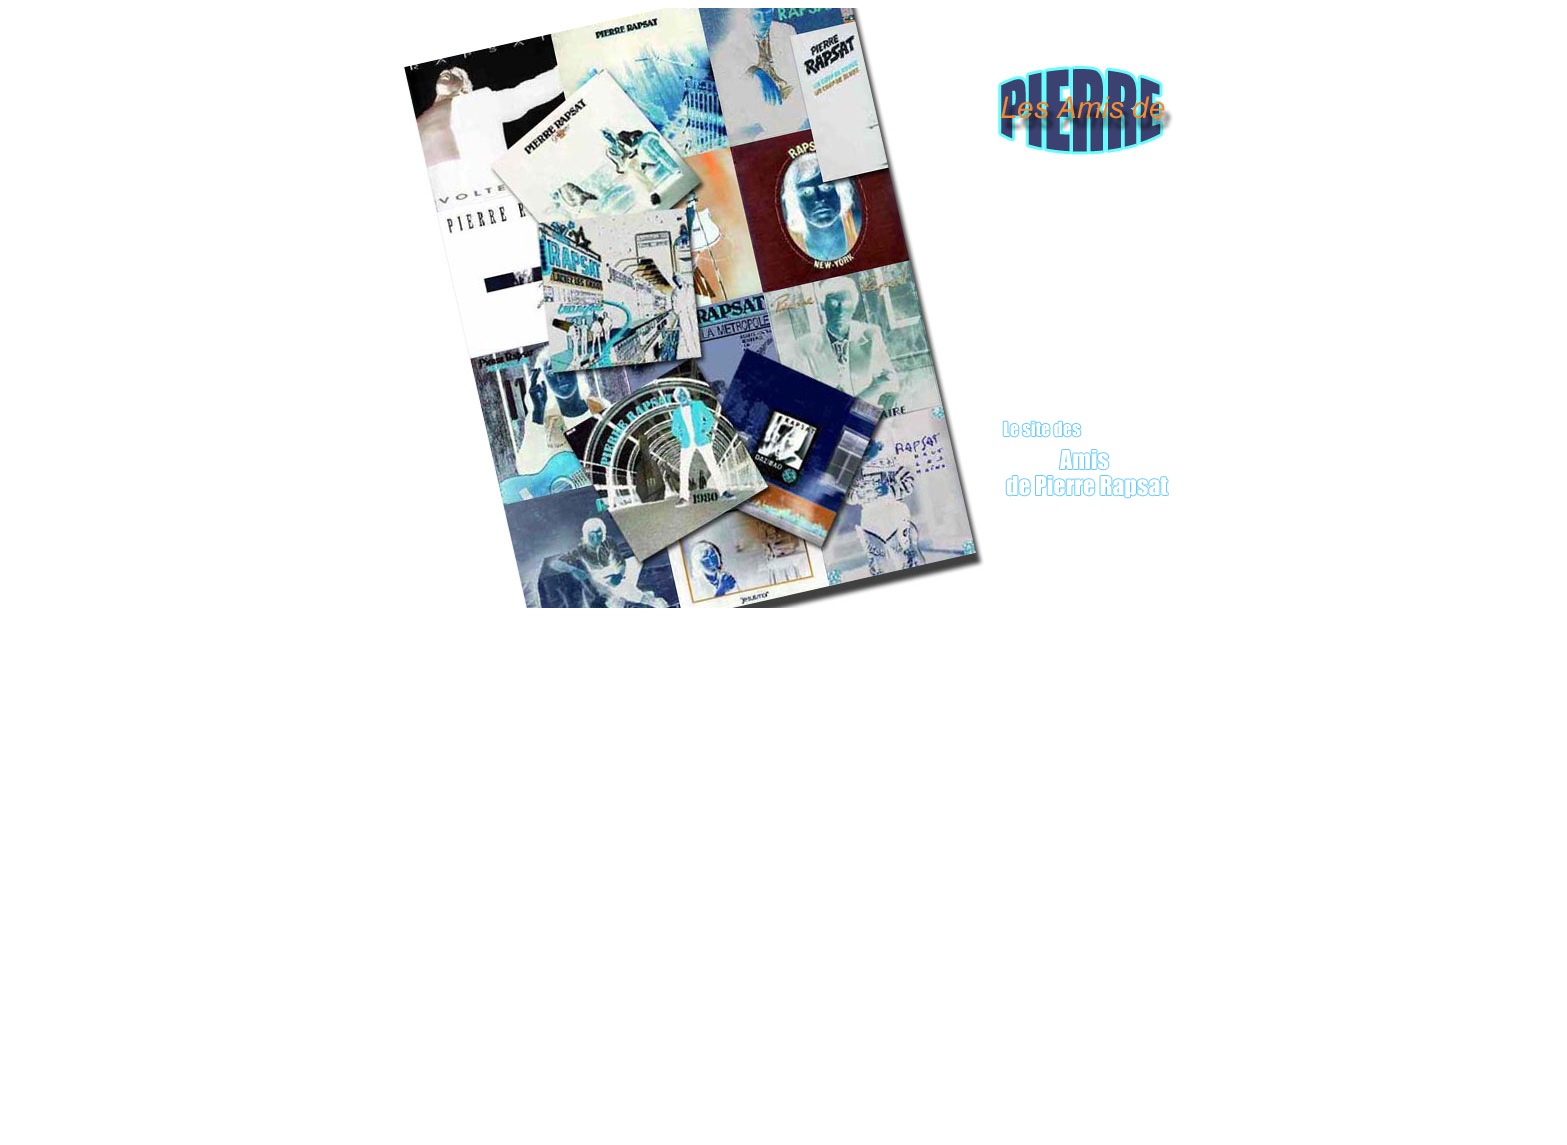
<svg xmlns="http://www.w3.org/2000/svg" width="1567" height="1145">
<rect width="100%" height="100%" fill="#fff"/>
<image href="1.png" x="400" y="24" width="184" height="84"/>
<image href="2.png" x="584" y="8" width="200" height="100"/>
<image href="3.png" x="784" y="8" width="97" height="100"/>
<image href="4.png" x="992" y="64" width="181" height="96"/>
<image href="5.png" x="408" y="108" width="176" height="100"/>
<image href="6.png" x="584" y="108" width="200" height="100"/>
<image href="7.png" x="784" y="108" width="120" height="100"/>
<image href="8.png" x="432" y="208" width="152" height="100"/>
<image href="9.png" x="584" y="208" width="200" height="100"/>
<image href="10.png" x="784" y="208" width="143" height="100"/>
<image href="11.png" x="458" y="308" width="126" height="100"/>
<image href="12.png" x="584" y="308" width="200" height="100"/>
<image href="13.png" x="784" y="308" width="165" height="100"/>
<image href="14.png" x="1002" y="420" width="167" height="79"/>
<image href="15.png" x="480" y="408" width="104" height="100"/>
<image href="16.png" x="584" y="408" width="200" height="100"/>
<image href="17.png" x="784" y="408" width="188" height="100"/>
<image href="18.png" x="503" y="508" width="81" height="100"/>
<image href="19.png" x="584" y="508" width="200" height="100"/>
<image href="20.png" x="784" y="508" width="200" height="100"/>
</svg>
